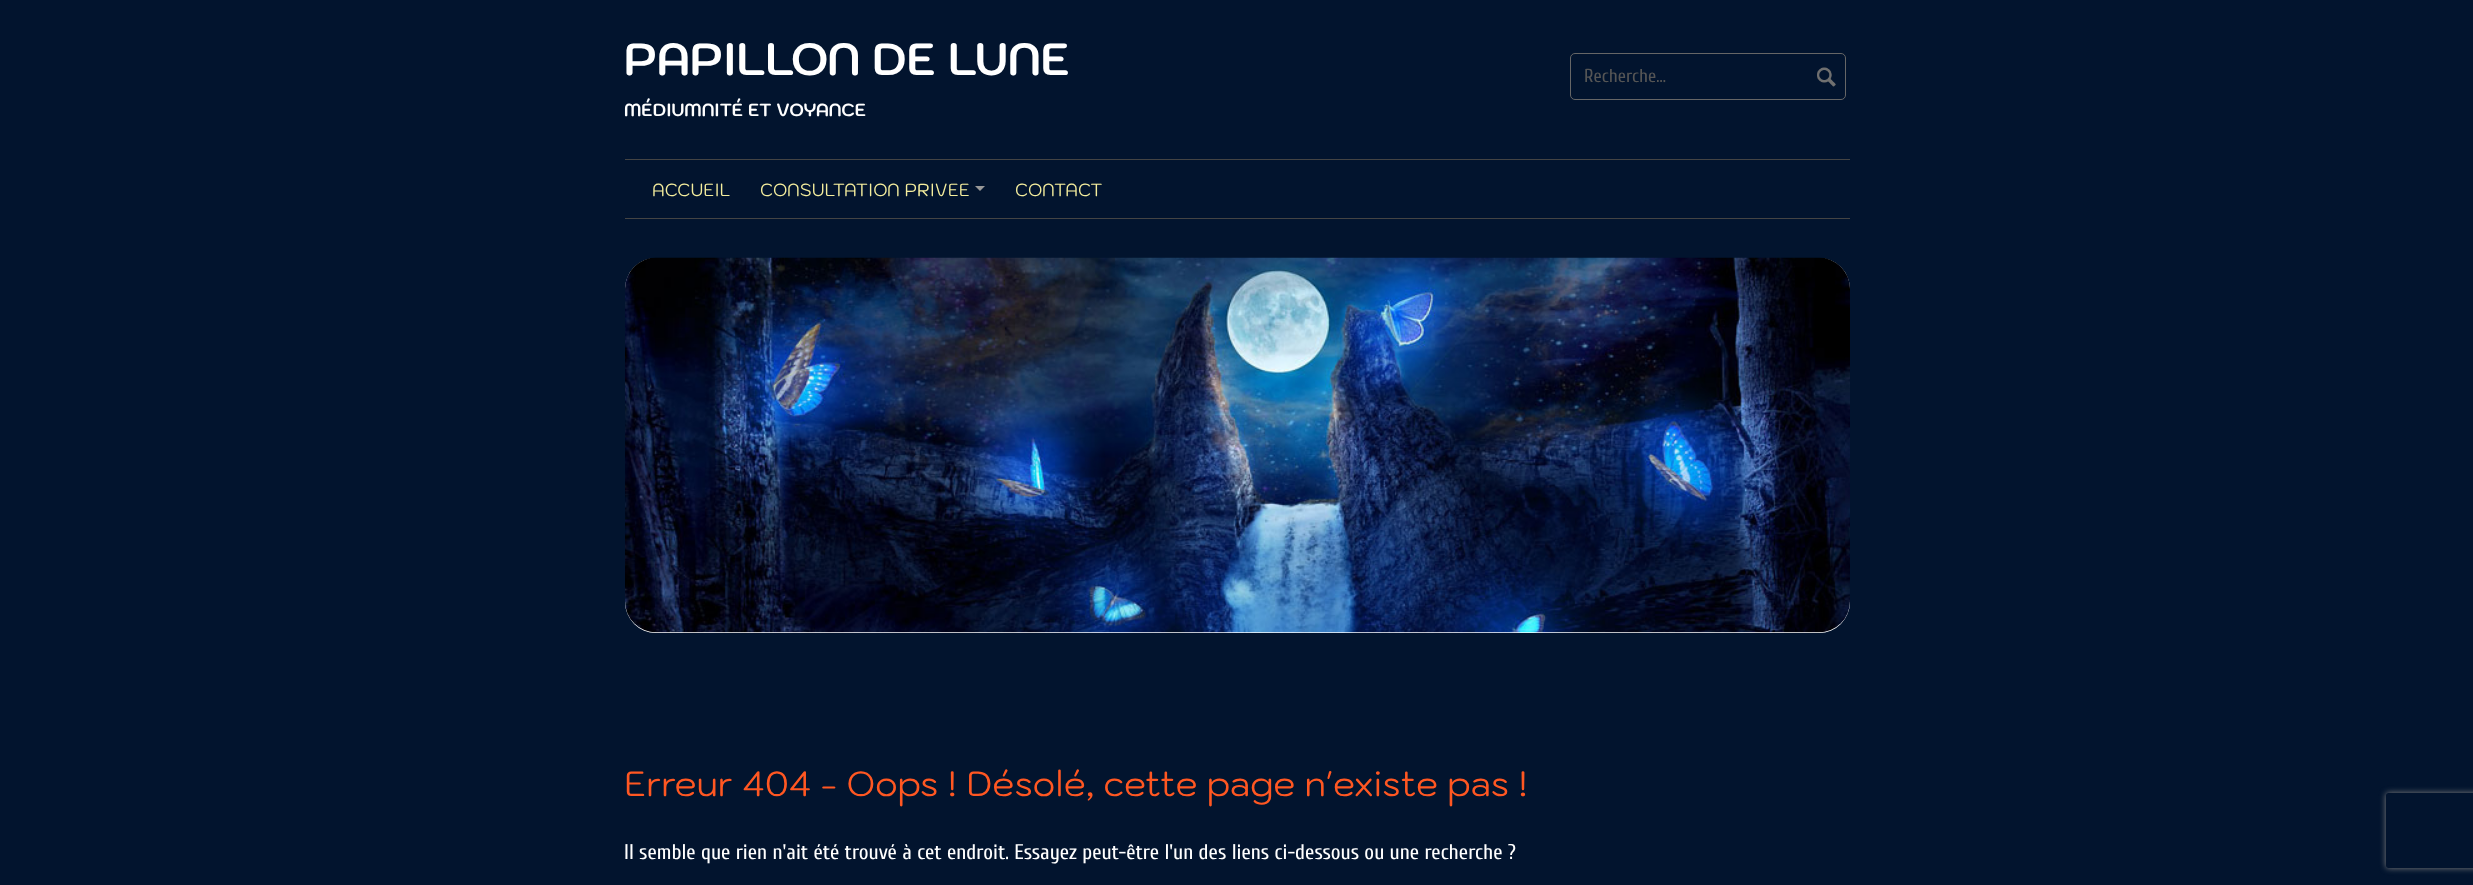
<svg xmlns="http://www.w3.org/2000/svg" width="2473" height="885">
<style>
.a{font:bold 45px Kodchasan;fill:#fff}
.b{font:bold 17.5px Kodchasan;fill:#fff}
.c{font:18.75px Cuprum;fill:#555}
.d{font:17.5px Kodchasan;fill:#f5ee9e}
.e{font:35px Kodchasan;fill:#ff5722}
.f{font:21.25px Cuprum;fill:#fff}
</style>
<defs>
<clipPath id="clip1"><path d="M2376 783h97v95h-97zm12.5 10h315c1.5 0 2.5 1 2.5 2.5v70c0 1.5-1 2.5-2.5 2.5h-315c-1.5 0-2.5-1-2.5-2.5v-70c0-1.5 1-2.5 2.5-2.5z" clip-rule="evenodd"/></clipPath>
</defs>
<rect width="100%" height="100%" fill="#02142e"/>
<rect fill="none" stroke="#666" x="1570.5" y="53.5" width="275" height="46" rx="4.5"/>
<image href="1.png" x="1817" y="67" width="19" height="20"/>
<path fill="#444" d="M625 159h1225v1H625z"/>
<path fill="#444" d="M625 218h1225v1H625z"/>
<path fill="#999" d="M975 186h10l-5 5z"/>
<rect fill="#fff" x="625" y="258" width="1225" height="375" rx="31"/>
<image href="2.png" x="625" y="257" width="1225" height="376"/>
<g clip-path="url(#clip1)">
<rect fill="#808080" filter="blur(3px)" x="2386" y="793" width="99" height="75" rx="2.5"/>
</g>
<text class="a" x="624" y="75">PAPILLON DE LUNE</text>
<text class="b" x="624" y="116">MÉDIUMNITÉ ET VOYANCE</text>
<text class="c" x="1584" y="82">Recherche...</text>
<text class="d" x="652" y="196">ACCUEIL</text>
<text class="d" x="760" y="196">CONSULTATION PRIVEE</text>
<text class="d" x="1015" y="196">CONTACT</text>
<text class="e" x="624" y="796">Erreur 404 - Oops ! Désolé, cette page n'existe pas !</text>
<text class="f" x="624" y="859">Il semble que rien n'ait été trouvé à cet endroit. Essayez peut-être l'un des liens ci-dessous ou une recherche ?</text>
</svg>
